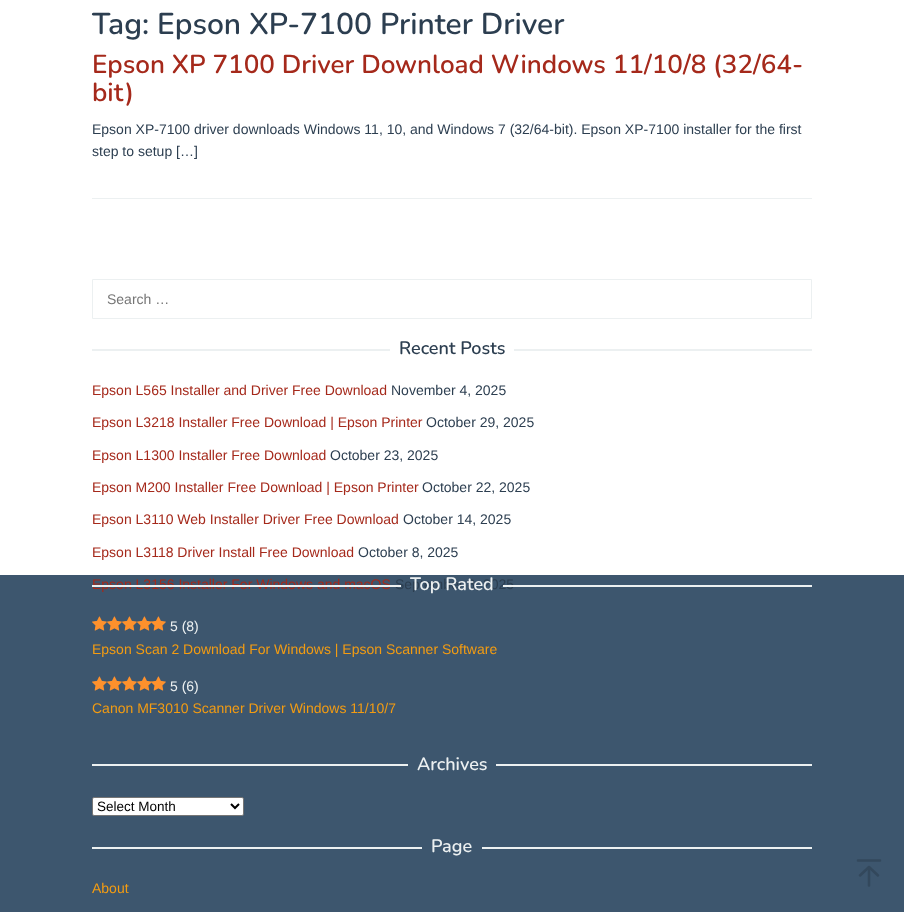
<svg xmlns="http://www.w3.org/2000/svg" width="904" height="912">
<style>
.a{font:600 30px Nunito;fill:#2c3e50}
.b{font:600 26px Nunito;fill:#a5291b}
.c{font:14px Liberation Sans;fill:#2c3e50}
.d{font:14px Liberation Sans;fill:#757575}
.e{font:600 18px Nunito;fill:#2c3e50}
.f{font:14px Liberation Sans;fill:#a5291b}
.g{font:600 18px Nunito;fill:#ecf0f1}
.h{font:14px Liberation Sans;fill:#ecf0f1}
.i{font:14px Liberation Sans;fill:#f39c12}
.j{font:13.5px Liberation Sans;fill:#000}
</style>
<rect width="100%" height="100%" fill="#3d566e"/>
<path fill="#fff" d="M0 0h904v575H0z"/>
<path fill="#ecf0f1" d="M92 198h720v1H92z"/>
<path fill="none" stroke="#ecf0f1" d="M92.5 279.5h719v39H92.5z"/>
<path fill="#ecf0f1" d="M92 349h298v2H92z"/>
<path fill="#ecf0f1" d="M514 349h298v2H514z"/>
<image href="1.png" x="92" y="616" width="15" height="15"/>
<image href="1.png" x="107" y="616" width="15" height="15"/>
<image href="1.png" x="122" y="616" width="15" height="15"/>
<image href="1.png" x="137" y="616" width="15" height="15"/>
<image href="2.png" x="151" y="616" width="15" height="15"/>
<image href="1.png" x="92" y="676" width="15" height="15"/>
<image href="1.png" x="107" y="676" width="15" height="15"/>
<image href="1.png" x="122" y="676" width="15" height="15"/>
<image href="1.png" x="137" y="676" width="15" height="15"/>
<image href="2.png" x="151" y="676" width="15" height="15"/>
<path fill="#ecf0f1" d="M92 764h316v2H92z"/>
<path fill="#ecf0f1" d="M496 764h316v2H496z"/>
<rect fill="#fff" stroke="#767676" x="92.5" y="797.5" width="151" height="18" rx="1.5"/>
<path fill="none" stroke="#000" stroke-width="2" d="M231 804l4 4l4-4"/>
<path fill="#ecf0f1" d="M92 847h330v2H92z"/>
<path fill="#ecf0f1" d="M482 847h330v2H482z"/>
<path fill="none" stroke="#33485c" stroke-width="2.5" stroke-linecap="round" stroke-linejoin="round" d="M869 885.5v-18.5m-9 8.5l9-8.5l9 8.5m-20-15h22"/>
<text class="a" x="92" y="34">Tag: Epson XP-7100 Printer Driver</text>
<text class="b" x="92" y="73">Epson XP 7100 Driver Download Windows 11/10/8 (32/64-</text>
<text class="b" x="92" y="101">bit)</text>
<text class="c" x="92" y="134">Epson XP-7100 driver downloads Windows 11, 10, and Windows 7 (32/64-bit). Epson XP-7100 installer for the first</text>
<text class="c" x="92" y="156">step to setup […]</text>
<text class="d" x="107" y="304">Search …</text>
<text class="e" x="399" y="354">Recent Posts</text>
<text class="f" x="92" y="395">Epson L565 Installer and Driver Free Download</text>
<text class="c" x="391" y="395">November 4, 2025</text>
<text class="f" x="92" y="427">Epson L3218 Installer Free Download | Epson Printer</text>
<text class="c" x="426" y="427">October 29, 2025</text>
<text class="f" x="92" y="460">Epson L1300 Installer Free Download</text>
<text class="c" x="330" y="460">October 23, 2025</text>
<text class="f" x="92" y="492">Epson M200 Installer Free Download | Epson Printer</text>
<text class="c" x="422" y="492">October 22, 2025</text>
<text class="f" x="92" y="524">Epson L3110 Web Installer Driver Free Download</text>
<text class="c" x="403" y="524">October 14, 2025</text>
<text class="f" x="92" y="557">Epson L3118 Driver Install Free Download</text>
<text class="c" x="358" y="557">October 8, 2025</text>
<text class="f" x="92" y="589">Epson L3156 Installer For Windows and macOS</text>
<text class="c" x="395" y="589">September 8, 2025</text>
<path fill="#ecf0f1" d="M92 585h309v2H92z"/>
<text class="g" x="410" y="590">Top Rated</text>
<path fill="#ecf0f1" d="M503 585h309v2H503z"/>
<text class="h" x="170" y="631">5 (8)</text>
<text class="i" x="92" y="654">Epson Scan 2 Download For Windows | Epson Scanner Software</text>
<text class="h" x="170" y="691">5 (6)</text>
<text class="i" x="92" y="713">Canon MF3010 Scanner Driver Windows 11/10/7</text>
<text class="g" x="417" y="770">Archives</text>
<text class="j" x="97" y="811">Select Month</text>
<text class="g" x="431" y="852">Page</text>
<text class="i" x="92" y="893">About</text>
</svg>
